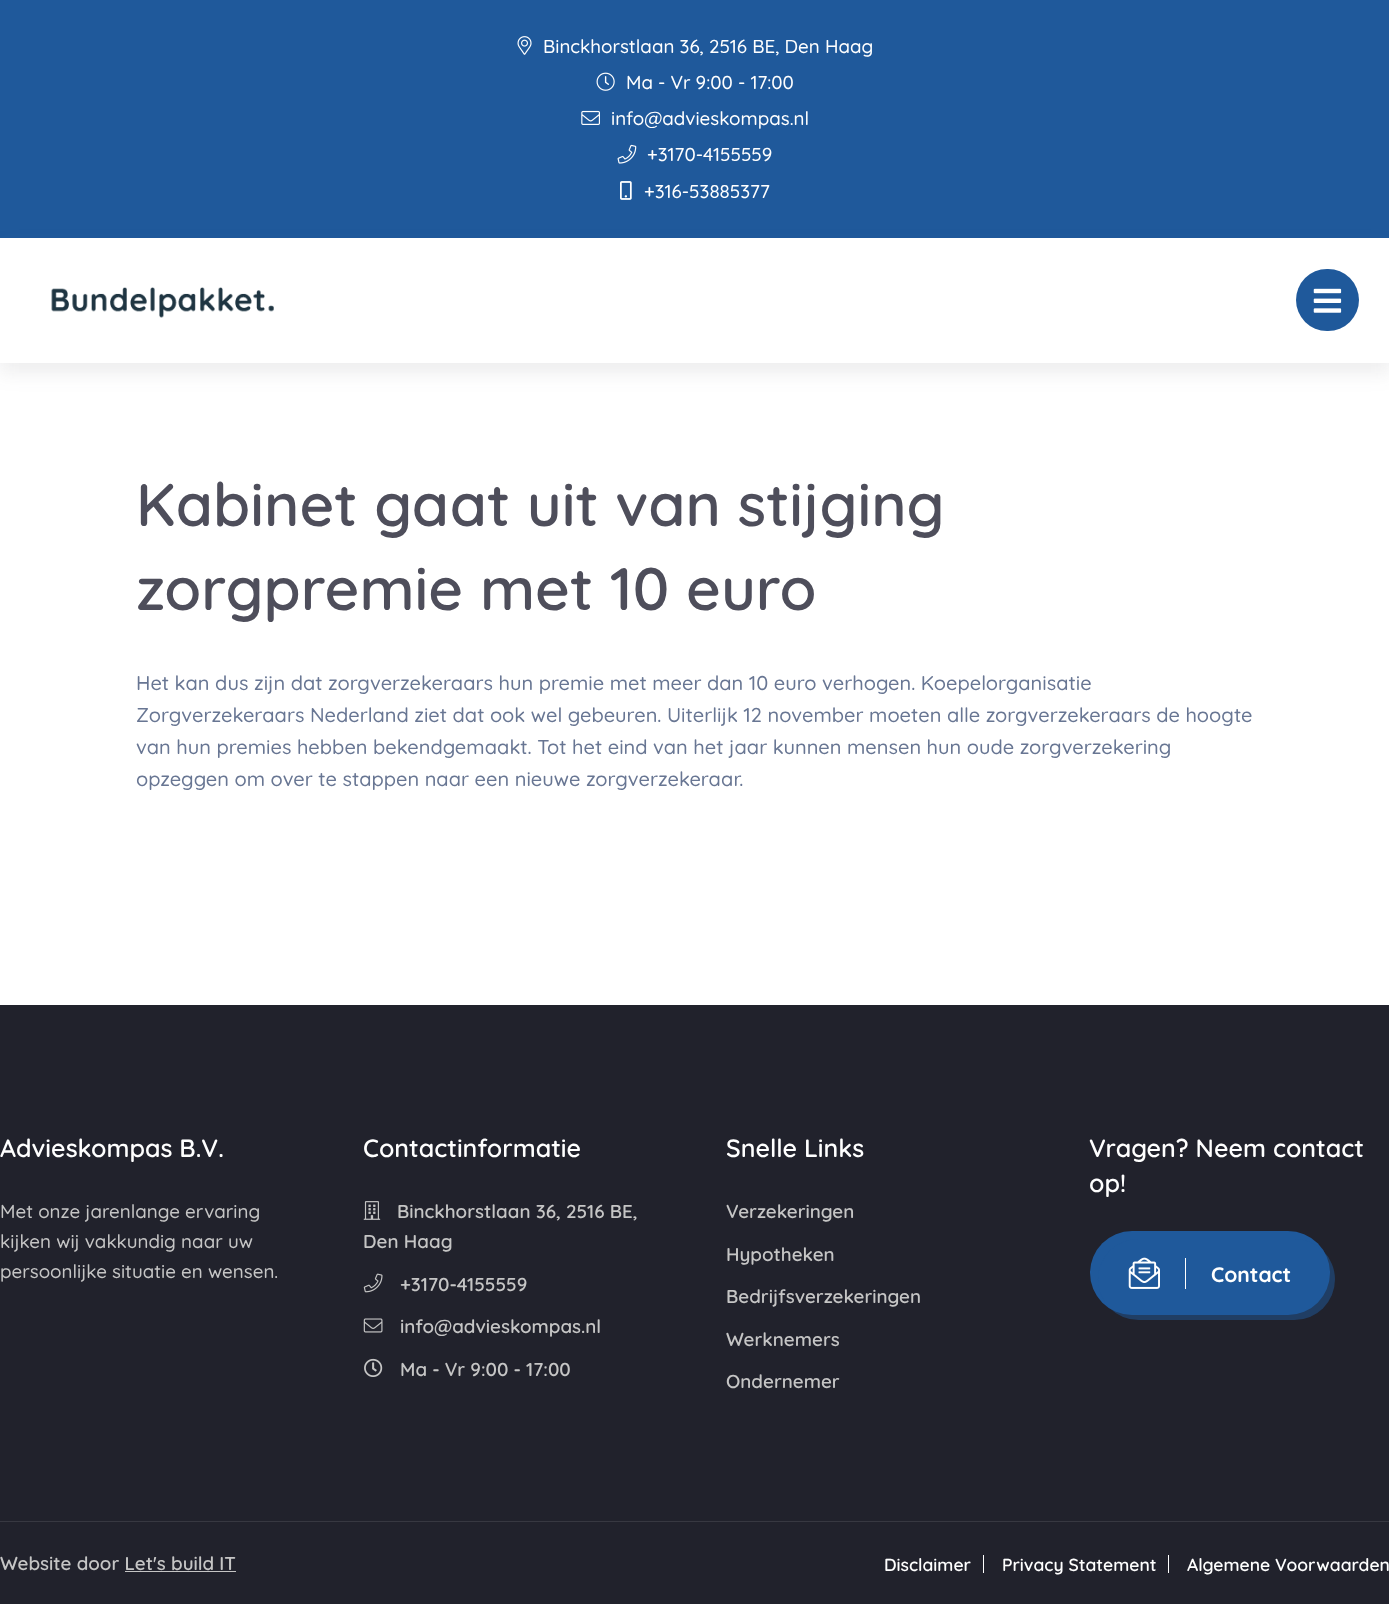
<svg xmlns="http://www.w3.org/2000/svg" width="1389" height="1604">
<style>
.a{font:500 18.75px Quicksand;fill:#fff}
.b{font:600 60px Quicksand;fill:#4e4e5b}
.c{font:500 20px Quicksand;fill:#687693}
.d{font:600 25px Quicksand;fill:#fff}
.e{font:500 18.75px Quicksand;fill:#c5c5c5}
.f{font:600 18.75px Quicksand;fill:#c5c5c5}
.g{font:bold 21px Quicksand;fill:#fff}
.h{font:600 17.5px Quicksand;fill:#fff}
</style>
<rect width="100%" height="100%" fill="#fff"/>
<path fill="#1f599b" d="M0 0h1389v238H0z"/>
<image href="1.png" x="517" y="36" width="15" height="19"/>
<image href="2.png" x="596" y="72" width="19" height="19"/>
<image href="3.png" x="581" y="110" width="19" height="15"/>
<image href="4.png" x="617" y="144" width="20" height="20"/>
<image href="5.png" x="620" y="181" width="12" height="19"/>
<path fill="#4e4e5b1a" filter="blur(9.5px)" d="M0 248h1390v125H0z"/>
<path fill="#fff" d="M0 238h1389v125H0z"/>
<image href="6.png" x="51" y="287" width="223" height="31"/>
<rect fill="#1f599b" x="1296" y="269" width="63" height="62" rx="31"/>
<image href="7.png" x="1313" y="288" width="29" height="25"/>
<path fill="#21222c" d="M0 1005h1389v599H0z"/>
<image href="8.png" x="363" y="1201" width="18" height="19"/>
<image href="9.png" x="363" y="1273" width="20" height="20"/>
<image href="10.png" x="363" y="1318" width="20" height="15"/>
<image href="11.png" x="364" y="1358" width="19" height="19"/>
<rect fill="#1f599b" x="1090" y="1231" width="240" height="84" rx="42"/>
<rect fill="#1f599b80" x="1098" y="1239" width="237" height="81" rx="40.5"/>
<path fill="#fff" d="M1185 1258h1v31H1185z"/>
<image href="12.png" x="1128" y="1257" width="32" height="32"/>
<path fill="#373841" d="M0 1521h1389v1H0z"/>
<path fill="#c5c5c5" d="M125 1571h111v1H125z"/>
<path fill="#fff" d="M983 1555h1v18H983z"/>
<path fill="#fff" d="M1168 1555h1v18H1168z"/>
<text class="a" x="543" y="53">Binckhorstlaan 36, 2516 BE, Den Haag</text>
<text class="a" x="626" y="89">Ma - Vr 9:00 - 17:00</text>
<text class="a" x="611" y="125">info@advieskompas.nl</text>
<text class="a" x="647" y="161">+3170-4155559</text>
<text class="a" x="644" y="198">+316-53885377</text>
<text class="b" x="136" y="526">Kabinet gaat uit van stijging</text>
<text class="b" x="136" y="610">zorgpremie met 10 euro</text>
<text class="c" x="136" y="690">Het kan dus zijn dat zorgverzekeraars hun premie met meer dan 10 euro verhogen. Koepelorganisatie</text>
<text class="c" x="136" y="722">Zorgverzekeraars Nederland ziet dat ook wel gebeuren. Uiterlijk 12 november moeten alle zorgverzekeraars de hoogte</text>
<text class="c" x="136" y="754">van hun premies hebben bekendgemaakt. Tot het eind van het jaar kunnen mensen hun oude zorgverzekering</text>
<text class="c" x="136" y="786">opzeggen om over te stappen naar een nieuwe zorgverzekeraar.</text>
<text class="d" x="0" y="1157">Advieskompas B.V.</text>
<text class="e" x="0" y="1218">Met onze jarenlange ervaring</text>
<text class="e" x="0" y="1248">kijken wij vakkundig naar uw</text>
<text class="e" x="0" y="1278">persoonlijke situatie en wensen.</text>
<text class="d" x="363" y="1157">Contactinformatie</text>
<text class="f" x="397" y="1218">Binckhorstlaan 36, 2516 BE,</text>
<text class="f" x="363" y="1248">Den Haag</text>
<text class="f" x="400" y="1291">+3170-4155559</text>
<text class="f" x="400" y="1333">info@advieskompas.nl</text>
<text class="f" x="400" y="1376">Ma - Vr 9:00 - 17:00</text>
<text class="d" x="726" y="1157">Snelle Links</text>
<text class="f" x="726" y="1218">Verzekeringen</text>
<text class="f" x="726" y="1261">Hypotheken</text>
<text class="f" x="726" y="1303">Bedrijfsverzekeringen</text>
<text class="f" x="726" y="1346">Werknemers</text>
<text class="f" x="726" y="1388">Ondernemer</text>
<text class="d" x="1089" y="1157">Vragen? Neem contact</text>
<text class="d" x="1089" y="1192">op!</text>
<text class="g" x="1211" y="1282">Contact</text>
<text class="f" x="0" y="1570">Website door Let's build IT</text>
<text class="h" x="884" y="1571">Disclaimer</text>
<text class="h" x="1002" y="1571">Privacy Statement</text>
<text class="h" x="1187" y="1571">Algemene Voorwaarden</text>
</svg>
